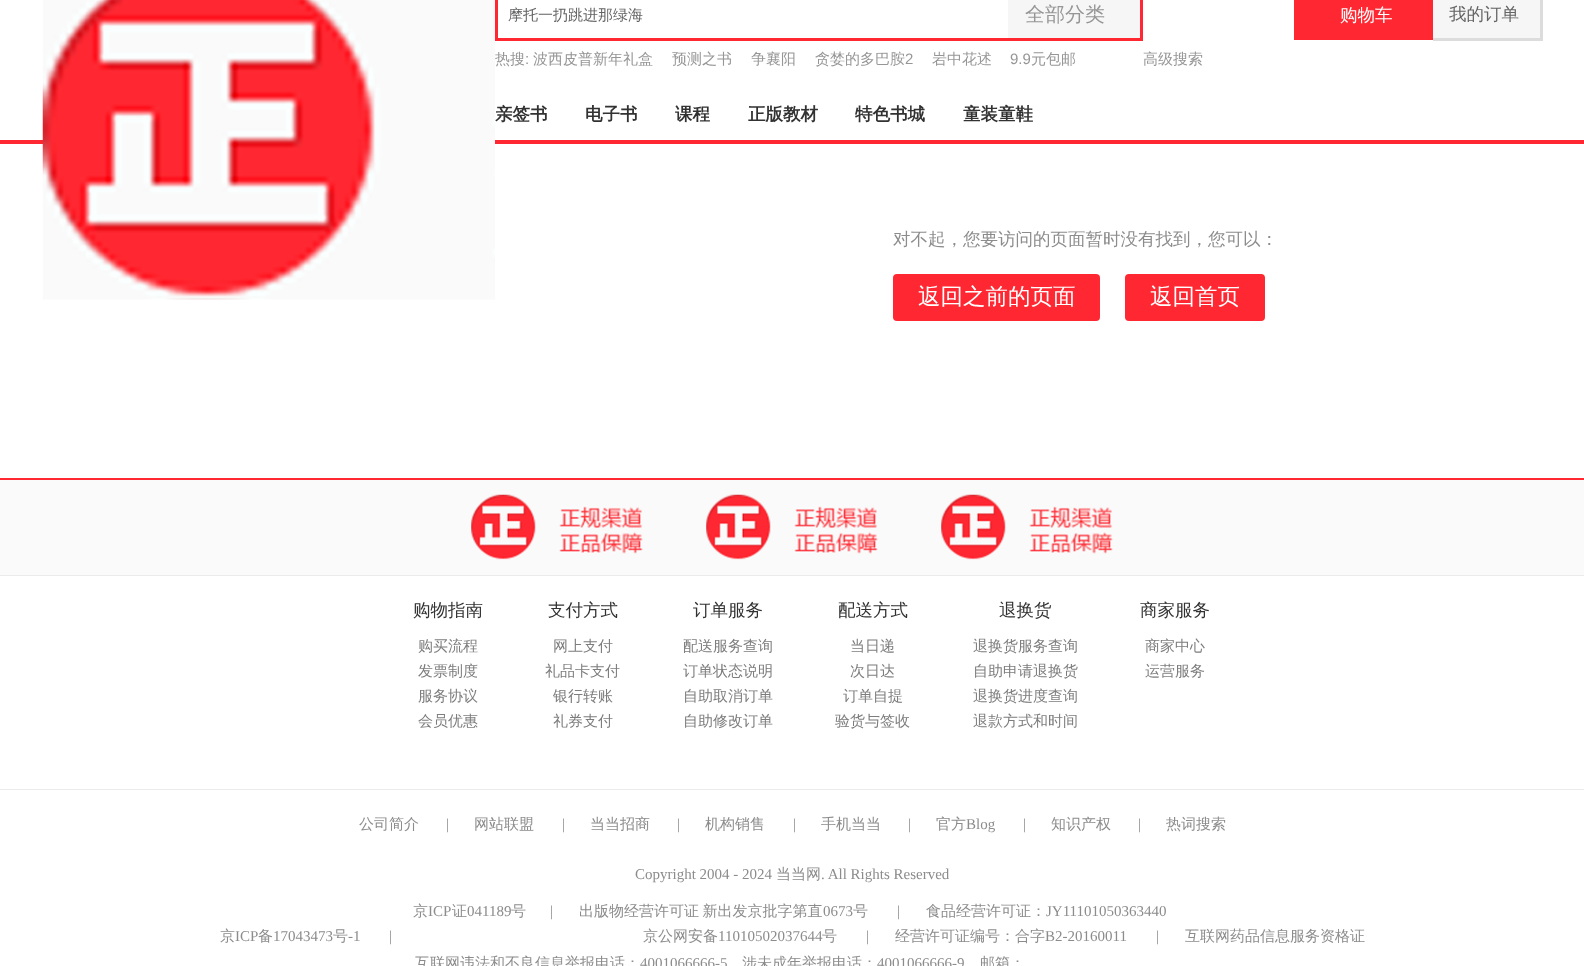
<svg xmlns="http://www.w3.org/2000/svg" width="1584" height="966">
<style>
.a{font:500 15px WenQuanYi Zen Hei;fill:#646464}
.b{font:500 20px WenQuanYi Zen Hei;fill:#969696}
.c{font:500 17.5px WenQuanYi Zen Hei;fill:#fff}
.d{font:500 17.5px WenQuanYi Zen Hei;fill:#646464}
.e{font:500 15px WenQuanYi Zen Hei;fill:#969696}
.f{font:15px Liberation Sans;fill:#969696}
.g{font:bold 17.5px WenQuanYi Zen Hei;fill:#323232}
.h{font:500 17.5px WenQuanYi Zen Hei;fill:#8c8c8c}
.i{font:500 22.5px WenQuanYi Zen Hei;fill:#fff}
.j{font:500 17.5px WenQuanYi Zen Hei;fill:#323232}
.k{font:500 15px WenQuanYi Zen Hei;fill:#7d7d7d}
.l{font:500 15px WenQuanYi Zen Hei;fill:#8c8c8c}
.m{font:15px Liberation Serif;fill:#8c8c8c}
</style>
<rect width="100%" height="100%" fill="#fff"/>
<path fill="#ff2832" d="M0 140h1584v4H0z"/>
<image href="1.png" x="42" y="0" width="453" height="300"/>
<path fill="#ff2832" d="M1140 0h3v40H1140z"/>
<path fill="#ff2832" d="M495 38h648v3H495z"/>
<path fill="#ff2832" d="M495 0h3v40H495z"/>
<path fill="#f6f6f6" d="M1008 0h132v38H1008z"/>
<path fill="#ff2832" d="M1294 0h139v40H1294z"/>
<path fill="#f6f6f6" d="M1433 0h107v38H1433z"/>
<path fill="#dcdcdc" d="M1540 0h3v40H1540z"/>
<path fill="#dcdcdc" d="M1433 38h110v3H1433z"/>
<rect fill="#ff2832" x="893" y="274" width="207" height="47" rx="4"/>
<rect fill="#ff2832" x="1125" y="274" width="140" height="47" rx="4"/>
<path fill="#ff2832" d="M0 478h1584v2H0z"/>
<path fill="#fafafa" d="M0 480h1584v95H0z"/>
<path fill="#ebebeb" d="M0 575h1584v1H0z"/>
<image href="2.png" x="471" y="494" width="172" height="66"/>
<image href="2.png" x="706" y="494" width="172" height="66"/>
<image href="2.png" x="941" y="494" width="172" height="66"/>
<path fill="#ebebeb" d="M0 789h1584v1H0z"/>
<text class="a" x="508" y="20">摩托一扔跳进那绿海</text>
<text class="b" x="1025" y="21">全部分类</text>
<text class="c" x="1340" y="21">购物车</text>
<text class="d" x="1449" y="20">我的订单</text>
<text class="e" x="495" y="64">热搜</text>
<text class="f" x="525" y="64">:</text>
<text class="e" x="533" y="64">波西皮普新年礼盒</text>
<text class="e" x="672" y="64">预测之书</text>
<text class="e" x="751" y="64">争襄阳</text>
<text class="e" x="815" y="64">贪婪的多巴胺</text>
<text class="f" x="905" y="64">2</text>
<text class="e" x="932" y="64">岩中花述</text>
<text class="f" x="1010" y="64">9.9</text>
<text class="e" x="1031" y="64">元包邮</text>
<text class="e" x="1143" y="64">高级搜索</text>
<text class="g" x="495" y="120">亲签书</text>
<text class="g" x="585" y="120">电子书</text>
<text class="g" x="675" y="120">课程</text>
<text class="g" x="748" y="120">正版教材</text>
<text class="g" x="855" y="120">特色书城</text>
<text class="g" x="963" y="120">童装童鞋</text>
<text class="h" x="893" y="245">对不起，您要访问的页面暂时没有找到，您可以：</text>
<text class="i" x="918" y="304">返回之前的页面</text>
<text class="i" x="1150" y="304">返回首页</text>
<text class="j" x="413" y="616">购物指南</text>
<text class="k" x="418" y="651">购买流程</text>
<text class="k" x="418" y="676">发票制度</text>
<text class="k" x="418" y="701">服务协议</text>
<text class="k" x="418" y="726">会员优惠</text>
<text class="j" x="548" y="616">支付方式</text>
<text class="k" x="553" y="651">网上支付</text>
<text class="k" x="545" y="676">礼品卡支付</text>
<text class="k" x="553" y="701">银行转账</text>
<text class="k" x="553" y="726">礼券支付</text>
<text class="j" x="693" y="616">订单服务</text>
<text class="k" x="683" y="651">配送服务查询</text>
<text class="k" x="683" y="676">订单状态说明</text>
<text class="k" x="683" y="701">自助取消订单</text>
<text class="k" x="683" y="726">自助修改订单</text>
<text class="j" x="838" y="616">配送方式</text>
<text class="k" x="850" y="651">当日递</text>
<text class="k" x="850" y="676">次日达</text>
<text class="k" x="843" y="701">订单自提</text>
<text class="k" x="835" y="726">验货与签收</text>
<text class="j" x="999" y="616">退换货</text>
<text class="k" x="973" y="651">退换货服务查询</text>
<text class="k" x="973" y="676">自助申请退换货</text>
<text class="k" x="973" y="701">退换货进度查询</text>
<text class="k" x="973" y="726">退款方式和时间</text>
<text class="j" x="1140" y="616">商家服务</text>
<text class="k" x="1145" y="651">商家中心</text>
<text class="k" x="1145" y="676">运营服务</text>
<text class="l" x="359" y="829">公司简介</text>
<text class="m" x="446" y="829">|</text>
<text class="l" x="474" y="829">网站联盟</text>
<text class="m" x="562" y="829">|</text>
<text class="l" x="590" y="829">当当招商</text>
<text class="m" x="677" y="829">|</text>
<text class="l" x="705" y="829">机构销售</text>
<text class="m" x="793" y="829">|</text>
<text class="l" x="821" y="829">手机当当</text>
<text class="m" x="908" y="829">|</text>
<text class="l" x="936" y="829">官方</text>
<text class="m" x="966" y="829">Blog</text>
<text class="m" x="1023" y="829">|</text>
<text class="l" x="1051" y="829">知识产权</text>
<text class="m" x="1138" y="829">|</text>
<text class="l" x="1166" y="829">热词搜索</text>
<text class="m" x="635" y="879">Copyright 2004 - 2024</text>
<text class="l" x="776" y="879">当当网</text>
<text class="m" x="821" y="879">. All Rights Reserved</text>
<text class="l" x="413" y="916">京</text>
<text class="m" x="428" y="916">ICP</text>
<text class="l" x="452" y="916">证</text>
<text class="m" x="467" y="916">041189</text>
<text class="l" x="511" y="916">号</text>
<text class="m" x="550" y="916">|</text>
<text class="l" x="579" y="916" word-spacing="-1">出版物经营许可证 新出发京批字第直</text>
<text class="m" x="823" y="916">0673</text>
<text class="l" x="853" y="916">号</text>
<text class="m" x="897" y="916">|</text>
<text class="l" x="926" y="916">食品经营许可证：</text>
<text class="m" x="1046" y="916">JY11101050363440</text>
<text class="l" x="220" y="941">京</text>
<text class="m" x="235" y="941">ICP</text>
<text class="l" x="258" y="941">备</text>
<text class="m" x="273" y="941">17043473</text>
<text class="l" x="333" y="941">号</text>
<text class="m" x="348" y="941">-1</text>
<text class="m" x="389" y="941">|</text>
<text class="l" x="643" y="941">京公网安备</text>
<text class="m" x="718" y="941">11010502037644</text>
<text class="l" x="822" y="941">号</text>
<text class="m" x="866" y="941">|</text>
<text class="l" x="895" y="941">经营许可证编号：合字</text>
<text class="m" x="1045" y="941">B2-20160011</text>
<text class="m" x="1156" y="941">|</text>
<text class="l" x="1185" y="941">互联网药品信息服务资格证</text>
<text class="l" x="415" y="968">互联网违法和不良信息举报电话：</text>
<text class="m" x="640" y="968">4001066666-5</text>
<text class="l" x="742" y="968">涉未成年举报电话：</text>
<text class="m" x="877" y="968">4001066666-9</text>
<text class="l" x="980" y="968">邮箱：</text>
</svg>
